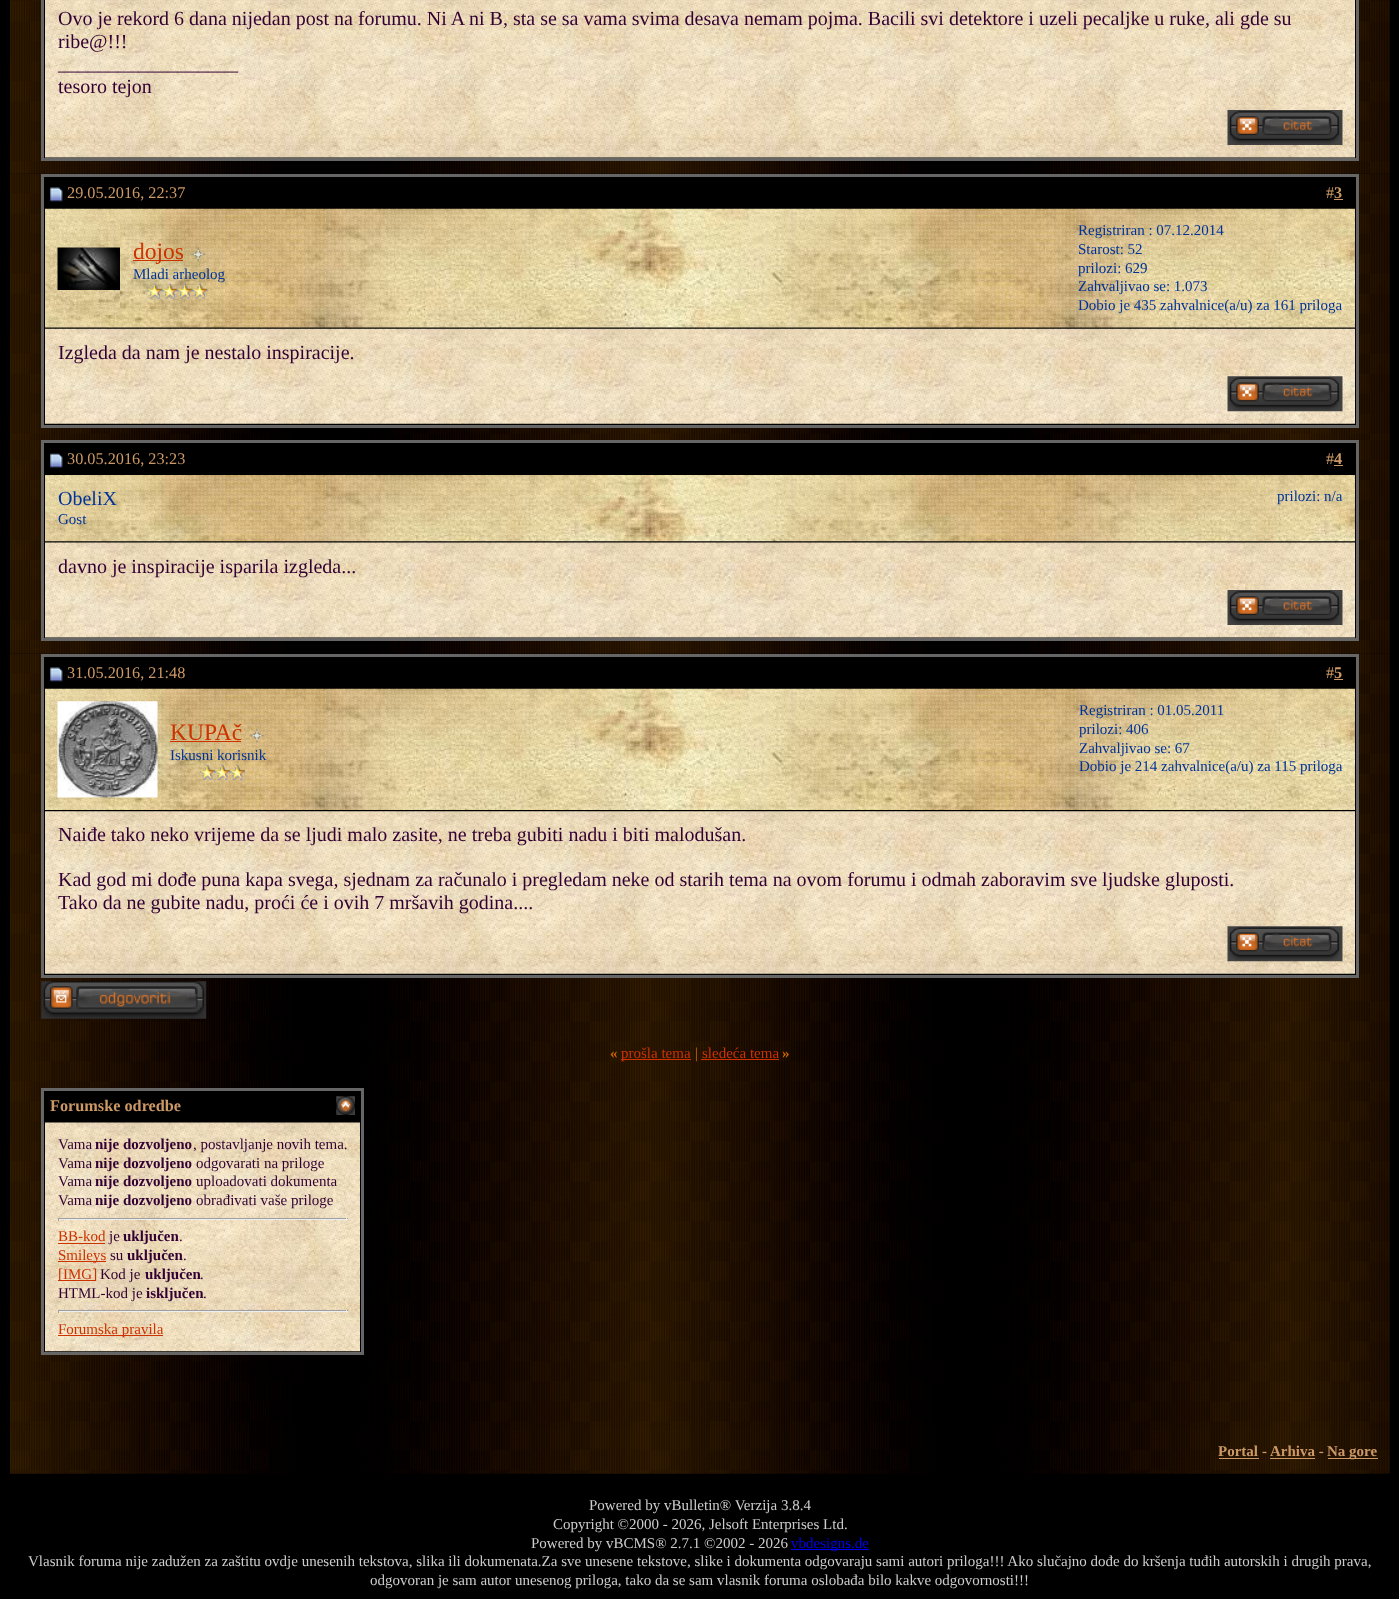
<svg xmlns="http://www.w3.org/2000/svg" width="1399" height="1599">
<style>
.a{font:20px Liberation Serif;fill:#303}
.b{font:16.25px Liberation Serif;fill:#c96}
.c{font:bold 16.25px Liberation Serif;fill:#c96}
.d{font:23.5px Liberation Serif;fill:#c30}
.e{font:15px Liberation Serif;fill:#039}
.f{font:20px Liberation Serif;fill:#039}
.g{font:bold 15px Liberation Serif;fill:#c60}
.h{font:15px Liberation Serif;fill:#c30}
.i{font:15px Liberation Serif;fill:#c60}
.j{font:15px Liberation Serif;fill:#303}
.k{font:bold 15px Liberation Serif;fill:#303}
.l{font:bold 15px Liberation Serif;fill:#c96}
.m{font:15px Liberation Serif;fill:#ccc}
.n{font:15px Liberation Serif;fill:#00e}
</style>
<rect width="100%" height="100%" fill="#000"/>
<image href="1.png" x="10" y="0" width="1380" height="174"/>
<path fill="#000" stroke="#666" stroke-width="3" d="M42.5 -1.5h1315v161H42.5z"/>
<image href="2.png" x="45" y="0" width="1310" height="158"/>
<image href="3.png" x="1227" y="110" width="116" height="35"/>
<image href="4.png" x="10" y="174" width="1380" height="266"/>
<path fill="#000" stroke="#666" stroke-width="3" d="M42.5 175.5h1315v251H42.5z"/>
<image href="5.png" x="50" y="187" width="13" height="15"/>
<path fill="#c96" d="M1334 199h9v1H1334z"/>
<image href="6.png" x="45" y="208" width="1310" height="120"/>
<image href="7.png" x="57" y="221" width="63" height="94"/>
<image href="8.png" x="57" y="247" width="63" height="43"/>
<path fill="#c30" d="M133 260h50v1H133z"/>
<image href="9.png" x="191" y="247" width="15" height="15"/>
<image href="10.png" x="147" y="283" width="61" height="16"/>
<image href="11.png" x="45" y="328" width="1310" height="96"/>
<image href="12.png" x="1227" y="376" width="116" height="36"/>
<image href="13.png" x="10" y="440" width="1380" height="214"/>
<path fill="#000" stroke="#666" stroke-width="3" d="M42.5 441.5h1315v198H42.5z"/>
<image href="14.png" x="50" y="453" width="13" height="15"/>
<path fill="#c96" d="M1334 465h9v1H1334z"/>
<image href="15.png" x="45" y="475" width="1310" height="67"/>
<image href="16.png" x="45" y="542" width="1310" height="96"/>
<image href="17.png" x="1227" y="590" width="116" height="35"/>
<image href="18.png" x="10" y="654" width="1380" height="336"/>
<path fill="#000" stroke="#666" stroke-width="3" d="M42.5 655.5h1315v321H42.5z"/>
<image href="5.png" x="50" y="667" width="13" height="15"/>
<path fill="#c96" d="M1334 679h9v1H1334z"/>
<image href="19.png" x="45" y="688" width="1310" height="122"/>
<image href="20.png" x="57" y="701" width="101" height="97"/>
<image href="21.png" x="57" y="701" width="101" height="97"/>
<path fill="#c30" d="M170 741h71v1H170z"/>
<image href="22.png" x="250" y="728" width="14" height="15"/>
<image href="23.png" x="200" y="765" width="45" height="15"/>
<image href="24.png" x="45" y="811" width="1310" height="163"/>
<image href="25.png" x="1227" y="926" width="116" height="36"/>
<image href="26.png" x="10" y="990" width="1380" height="440"/>
<image href="27.png" x="41" y="981" width="166" height="38"/>
<path fill="#c30" d="M621 1059h70v1H621z"/>
<path fill="#c30" d="M701 1059h78v1H701z"/>
<path fill="#000" d="M44 1091h250v261H44z"/>
<path fill="none" stroke="#666" stroke-width="3" d="M42.5 1089.5h320v264H42.5z"/>
<image href="28.png" x="336" y="1096" width="19" height="19"/>
<image href="29.png" x="45" y="1122" width="315" height="230"/>
<path fill="#9f9f9f" d="M58 1218h290v1H58z"/>
<path fill="#eee" d="M346 1218h1v3H346z"/>
<path fill="#eee" d="M58 1219h290v1H58z"/>
<path fill="#9f9f9f" d="M58 1218h1v3H58z"/>
<path fill="#c30" d="M58 1243h47v1H58z"/>
<path fill="#c30" d="M58 1261h48v1H58z"/>
<path fill="#c30" d="M58 1280h38v1H58z"/>
<path fill="#9f9f9f" d="M58 1310h290v1H58z"/>
<path fill="#eee" d="M346 1310h1v3H346z"/>
<path fill="#eee" d="M58 1311h290v1H58z"/>
<path fill="#9f9f9f" d="M58 1310h1v3H58z"/>
<path fill="#c30" d="M58 1335h105v1H58z"/>
<image href="30.png" x="10" y="1430" width="1380" height="44"/>
<path fill="#c96" d="M1219 1458h40v1H1219z"/>
<path fill="#c96" d="M1270 1458h45v1H1270z"/>
<path fill="#c96" d="M1328 1458h50v1H1328z"/>
<path fill="#00e" d="M791 1549h78v1H791z"/>
<text class="a" x="58" y="25">Ovo je rekord 6 dana nijedan post na forumu. Ni A ni B, sta se sa vama svima desava nemam pojma. Bacili svi detektore i uzeli pecaljke u ruke, ali gde su</text>
<text class="a" x="58" y="48">ribe@!!!</text>
<text class="a" x="58" y="70">__________________</text>
<text class="a" x="58" y="93">tesoro tejon</text>
<text class="b" x="67" y="198">29.05.2016, 22:37</text>
<text class="b" x="1326" y="198">#</text>
<text class="c" x="1334" y="198">3</text>
<text class="d" x="133" y="259">dojos</text>
<text class="e" x="133" y="279">Mladi arheolog</text>
<text class="e" x="1078" y="235">Registriran : 07.12.2014</text>
<text class="e" x="1078" y="254">Starost: 52</text>
<text class="e" x="1078" y="273">prilozi: 629</text>
<text class="e" x="1078" y="291">Zahvaljivao se: 1.073</text>
<text class="e" x="1078" y="310">Dobio je 435 zahvalnice(a/u) za 161 priloga</text>
<text class="a" x="58" y="359">Izgleda da nam je nestalo inspiracije.</text>
<text class="b" x="67" y="464">30.05.2016, 23:23</text>
<text class="b" x="1326" y="464">#</text>
<text class="c" x="1334" y="464">4</text>
<text class="f" x="58" y="505">ObeliX</text>
<text class="e" x="58" y="524">Gost</text>
<text class="e" x="1277" y="501">prilozi: n/a</text>
<text class="a" x="58" y="573">davno je inspiracije isparila izgleda...</text>
<text class="b" x="67" y="678">31.05.2016, 21:48</text>
<text class="b" x="1326" y="678">#</text>
<text class="c" x="1334" y="678">5</text>
<text class="d" x="170" y="740">KUPAč</text>
<text class="e" x="170" y="760">Iskusni korisnik</text>
<text class="e" x="1079" y="715">Registriran : 01.05.2011</text>
<text class="e" x="1079" y="734">prilozi: 406</text>
<text class="e" x="1079" y="753">Zahvaljivao se: 67</text>
<text class="e" x="1079" y="771">Dobio je 214 zahvalnice(a/u) za 115 priloga</text>
<text class="a" x="58" y="841">Naiđe tako neko vrijeme da se ljudi malo zasite, ne treba gubiti nadu i biti malodušan.</text>
<text class="a" x="58" y="886">Kad god mi dođe puna kapa svega, sjednam za računalo i pregledam neke od starih tema na ovom forumu i odmah zaboravim sve ljudske gluposti.</text>
<text class="a" x="58" y="909">Tako da ne gubite nadu, proći će i ovih 7 mršavih godina....</text>
<text class="g" x="610" y="1058">«</text>
<text class="h" x="621" y="1058">prošla tema</text>
<text class="i" x="695" y="1058">|</text>
<text class="h" x="702" y="1058">sledeća tema</text>
<text class="g" x="782" y="1058">»</text>
<text class="c" x="50" y="1111">Forumske odredbe</text>
<text class="j" x="58" y="1149">Vama</text>
<text class="k" x="95" y="1149">nije dozvoljeno</text>
<text class="j" x="193" y="1149">, postavljanje novih tema.</text>
<text class="j" x="58" y="1168">Vama</text>
<text class="k" x="95" y="1168">nije dozvoljeno</text>
<text class="j" x="196" y="1168">odgovarati na priloge</text>
<text class="j" x="58" y="1186">Vama</text>
<text class="k" x="95" y="1186">nije dozvoljeno</text>
<text class="j" x="196" y="1186">uploadovati dokumenta</text>
<text class="j" x="58" y="1205">Vama</text>
<text class="k" x="95" y="1205">nije dozvoljeno</text>
<text class="j" x="196" y="1205">obrađivati vaše priloge</text>
<text class="h" x="58" y="1241">BB-kod</text>
<text class="j" x="109" y="1241">je</text>
<text class="k" x="123" y="1241">uključen</text>
<text class="j" x="179" y="1241">.</text>
<text class="h" x="58" y="1260">Smileys</text>
<text class="j" x="110" y="1260">su</text>
<text class="k" x="127" y="1260">uključen</text>
<text class="j" x="183" y="1260">.</text>
<text class="h" x="58" y="1279">[IMG]</text>
<text class="j" x="100" y="1279">Kod je</text>
<text class="k" x="145" y="1279">uključen</text>
<text class="j" x="200" y="1279">.</text>
<text class="j" x="58" y="1298">HTML-kod je</text>
<text class="k" x="146" y="1298">isključen</text>
<text class="j" x="203" y="1298">.</text>
<text class="h" x="58" y="1334">Forumska pravila</text>
<text class="l" x="1218" y="1456">Portal</text>
<text class="l" x="1262" y="1456">-</text>
<text class="l" x="1270" y="1456">Arhiva -</text>
<text class="l" x="1327" y="1456">Na gore</text>
<text class="m" x="589" y="1510">Powered by vBulletin® Verzija 3.8.4</text>
<text class="m" x="553" y="1529">Copyright ©2000 - 2026, Jelsoft Enterprises Ltd.</text>
<text class="m" x="531" y="1548">Powered by vBCMS® 2.7.1 ©2002 - 2026</text>
<text class="n" x="791" y="1548">vbdesigns.de</text>
<text class="m" x="28" y="1566">Vlasnik foruma nije zadužen za zaštitu ovdje unesenih tekstova, slika ili dokumenata.Za sve unesene tekstove, slike i dokumenta odgovaraju sami autori priloga!!! Ako slučajno dođe do kršenja tuđih autorskih i drugih prava,</text>
<text class="m" x="370" y="1585">odgovoran je sam autor unesenog priloga, tako da se sam vlasnik foruma oslobađa bilo kakve odgovornosti!!!</text>
</svg>
